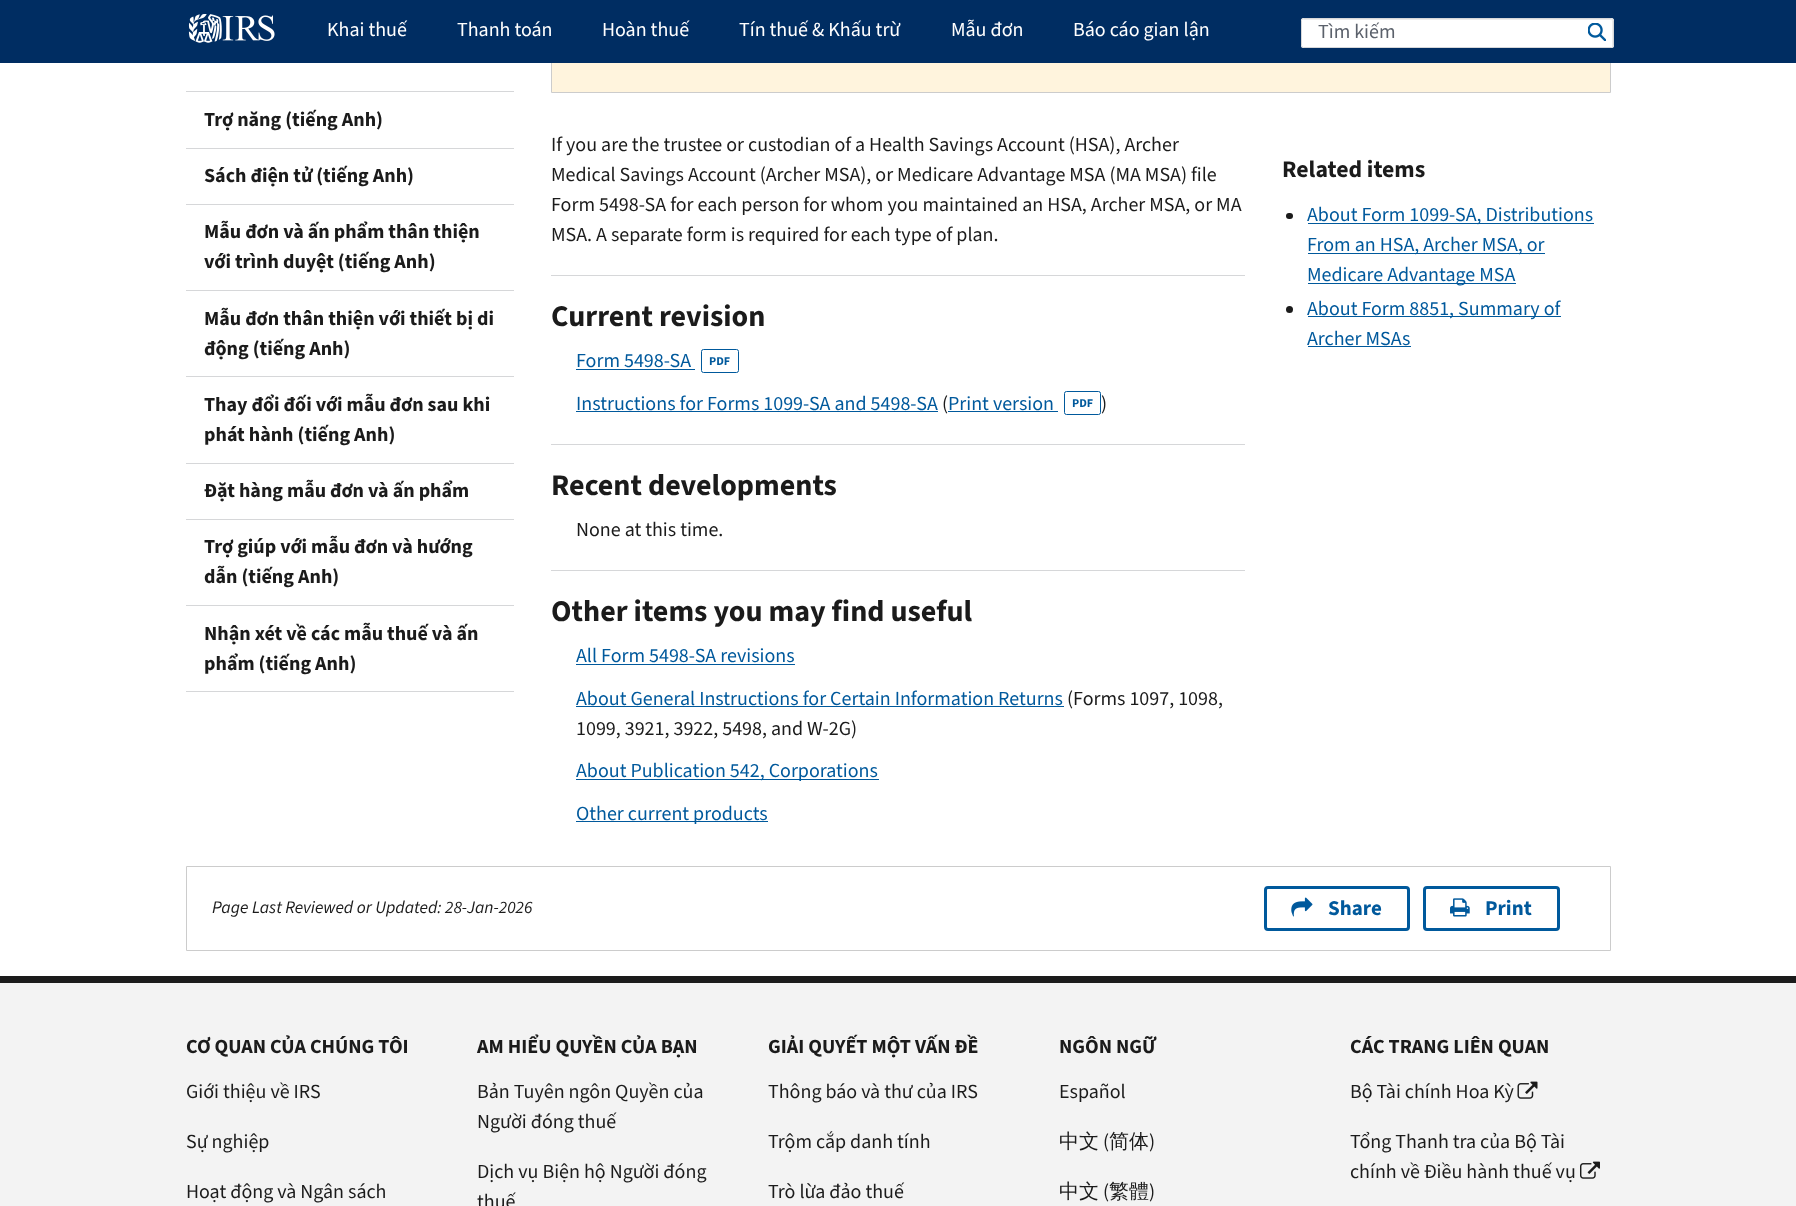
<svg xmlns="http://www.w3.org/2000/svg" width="1796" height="1206">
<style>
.a{font:20px 'Source Sans 3';fill:#fff}
.b{font:20px 'Source Sans 3';fill:#5b616b}
.c{font:bold 20px 'Source Sans 3';fill:#1b1b1b}
.d{font:20px 'Source Sans 3';fill:#1b1b1b}
.e{font:bold 30px 'Source Sans 3';fill:#1b1b1b}
.f{font:20px 'Source Sans 3';fill:#00599c}
.g{font:bold 12px 'Source Sans 3';fill:#00599c}
.h{font:bold 23.75px 'Source Sans 3';fill:#1b1b1b}
.i{font:italic 17.5px 'Source Sans 3';fill:#1b1b1b}
.j{font:bold 21px 'Source Sans 3';fill:#00599c}
.k{font:500 20px WenQuanYi Zen Hei;fill:#1b1b1b}
</style>
<rect width="100%" height="100%" fill="#fff"/>
<path fill="#fff4dd" d="M552 63h1058v29H552z"/>
<path fill="none" stroke="#ccc" d="M551.5 -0.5h1059v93H551.5z"/>
<path fill="#002d62" d="M0 0h1796v63H0z"/>
<image href="1.png" x="188" y="14" width="87" height="29"/>
<rect fill="#fff" x="1301" y="18" width="313" height="30" rx="2.5"/>
<path fill="#ececec" d="M1304 20h307c1 0 1 1 1 1v25h1v-14c0-1 1-13-1-13h-308c-1 0-1 1-1 1z"/>
<rect fill="none" stroke="#d6d7d9" x="1301.5" y="18.5" width="312" height="29" rx="2"/>
<image href="2.png" x="1588" y="23" width="18" height="18"/>
<path fill="#d6d7d9" d="M186 91h328v1H186z"/>
<path fill="#d6d7d9" d="M186 148h328v1H186z"/>
<path fill="#d6d7d9" d="M186 204h328v1H186z"/>
<path fill="#d6d7d9" d="M186 290h328v1H186z"/>
<path fill="#d6d7d9" d="M186 376h328v1H186z"/>
<path fill="#d6d7d9" d="M186 463h328v1H186z"/>
<path fill="#d6d7d9" d="M186 519h328v1H186z"/>
<path fill="#d6d7d9" d="M186 605h328v1H186z"/>
<path fill="#d6d7d9" d="M186 691h328v1H186z"/>
<path fill="#d6d7d9" d="M551 275h694v1H551z"/>
<path fill="#00599c" d="M576 369h119v1H576z"/>
<rect fill="none" stroke="#00599c" x="701.5" y="349.5" width="37" height="23" rx="2"/>
<path fill="#00599c" d="M576 411h362v1H576z"/>
<path fill="#00599c" d="M948 411h110v1H948z"/>
<rect fill="none" stroke="#00599c" x="1064.5" y="391.5" width="36" height="23" rx="2"/>
<path fill="#d6d7d9" d="M551 444h694v1H551z"/>
<path fill="#d6d7d9" d="M551 570h694v1H551z"/>
<path fill="#00599c" d="M576 664h219v1H576z"/>
<path fill="#00599c" d="M576 706h488v1H576z"/>
<path fill="#00599c" d="M576 779h303v1H576z"/>
<path fill="#00599c" d="M576 821h192v1H576z"/>
<rect fill="#1b1b1b" x="1286" y="213" width="7" height="6" rx="3"/>
<path fill="#00599c" d="M1308 223h286v1H1308z"/>
<path fill="#00599c" d="M1308 253h237v1H1308z"/>
<path fill="#00599c" d="M1308 283h208v1H1308z"/>
<circle fill="#1b1b1b" cx="1289.5" cy="309.5" r="3.5"/>
<path fill="#00599c" d="M1308 316h253v1H1308z"/>
<path fill="#00599c" d="M1308 346h103v1H1308z"/>
<path fill="none" stroke="#ccc" d="M186.5 866.5h1424v84H186.5z"/>
<rect fill="none" stroke="#00599c" stroke-width="3" x="1265.5" y="887.5" width="143" height="42" rx="2.5"/>
<image href="3.png" x="1291" y="897" width="22" height="20"/>
<rect fill="none" stroke="#00599c" stroke-width="3" x="1424.5" y="887.5" width="134" height="42" rx="2.5"/>
<image href="4.png" x="1450" y="898" width="20" height="19"/>
<path fill="#f3f3f3" d="M0 983h1796v223H0z"/>
<path fill="#1b1b1b" d="M0 976h1796v7H0z"/>
<image href="5.png" x="1517" y="1081" width="21" height="18"/>
<image href="6.png" x="1580" y="1161" width="20" height="18"/>
<text class="a" x="327" y="36">Khai thuế</text>
<text class="a" x="457" y="36">Thanh toán</text>
<text class="a" x="602" y="36">Hoàn thuế</text>
<text class="a" x="739" y="36">Tín thuế &amp; Khấu trừ</text>
<text class="a" x="951" y="36">Mẫu đơn</text>
<text class="a" x="1073" y="36">Báo cáo gian lận</text>
<text class="b" x="1318" y="38">Tìm kiếm</text>
<text class="c" x="204" y="126">Trợ năng (tiếng Anh)</text>
<text class="c" x="204" y="182">Sách điện tử (tiếng Anh)</text>
<text class="c" x="204" y="238">Mẫu đơn và ấn phẩm thân thiện</text>
<text class="c" x="204" y="268">với trình duyệt (tiếng Anh)</text>
<text class="c" x="204" y="325">Mẫu đơn thân thiện với thiết bị di</text>
<text class="c" x="204" y="355">động (tiếng Anh)</text>
<text class="c" x="204" y="411">Thay đổi đối với mẫu đơn sau khi</text>
<text class="c" x="204" y="441">phát hành (tiếng Anh)</text>
<text class="c" x="204" y="497">Đặt hàng mẫu đơn và ấn phẩm</text>
<text class="c" x="204" y="553">Trợ giúp với mẫu đơn và hướng</text>
<text class="c" x="204" y="583">dẫn (tiếng Anh)</text>
<text class="c" x="204" y="640">Nhận xét về các mẫu thuế và ấn</text>
<text class="c" x="204" y="670">phẩm (tiếng Anh)</text>
<text class="d" x="551" y="151">If you are the trustee or custodian of a Health Savings Account (HSA), Archer</text>
<text class="d" x="551" y="181">Medical Savings Account (Archer MSA), or Medicare Advantage MSA (MA MSA) file</text>
<text class="d" x="551" y="211">Form 5498-SA for each person for whom you maintained an HSA, Archer MSA, or MA</text>
<text class="d" x="551" y="241">MSA. A separate form is required for each type of plan.</text>
<text class="e" x="551" y="326">Current revision</text>
<text class="f" x="576" y="367">Form 5498-SA</text>
<text class="g" x="709" y="365">PDF</text>
<text class="f" x="576" y="410">Instructions for Forms 1099-SA and 5498-SA</text>
<text class="d" x="942" y="410">(</text>
<text class="f" x="948" y="410">Print version</text>
<text class="g" x="1072" y="407">PDF</text>
<text class="d" x="1101" y="410">)</text>
<text class="e" x="551" y="495">Recent developments</text>
<text class="d" x="576" y="536">None at this time.</text>
<text class="e" x="551" y="621">Other items you may find useful</text>
<text class="f" x="576" y="662">All Form 5498-SA revisions</text>
<text class="f" x="576" y="705">About General Instructions for Certain Information Returns</text>
<text class="d" x="1067" y="705">(Forms 1097, 1098,</text>
<text class="d" x="576" y="735">1099, 3921, 3922, 5498, and W-2G)</text>
<text class="f" x="576" y="777">About Publication 542, Corporations</text>
<text class="f" x="576" y="820">Other current products</text>
<text class="h" x="1282" y="177">Related items</text>
<text class="f" x="1307" y="221">About Form 1099-SA, Distributions</text>
<text class="f" x="1307" y="251">From an HSA, Archer MSA, or</text>
<text class="f" x="1307" y="281">Medicare Advantage MSA</text>
<text class="f" x="1307" y="315">About Form 8851, Summary of</text>
<text class="f" x="1307" y="345">Archer MSAs</text>
<text class="i" x="212" y="913">Page Last Reviewed or Updated: 28-Jan-2026</text>
<text class="j" x="1328" y="915">Share</text>
<text class="j" x="1485" y="915">Print</text>
<text class="c" x="186" y="1053">CƠ QUAN CỦA CHÚNG TÔI</text>
<text class="d" x="186" y="1098">Giới thiệu về IRS</text>
<text class="d" x="186" y="1148">Sự nghiệp</text>
<text class="d" x="186" y="1198">Hoạt động và Ngân sách</text>
<text class="c" x="477" y="1053">AM HIỂU QUYỀN CỦA BẠN</text>
<text class="d" x="477" y="1098">Bản Tuyên ngôn Quyền của</text>
<text class="d" x="477" y="1128">Người đóng thuế</text>
<text class="d" x="477" y="1178">Dịch vụ Biện hộ Người đóng</text>
<text class="d" x="477" y="1208">thuế</text>
<text class="c" x="768" y="1053">GIẢI QUYẾT MỘT VẤN ĐỀ</text>
<text class="d" x="768" y="1098">Thông báo và thư của IRS</text>
<text class="d" x="768" y="1148">Trộm cắp danh tính</text>
<text class="d" x="768" y="1198">Trò lừa đảo thuế</text>
<text class="c" x="1059" y="1053">NGÔN NGỮ</text>
<text class="d" x="1059" y="1098">Español</text>
<text class="k" x="1059" y="1148">中文</text>
<text class="d" x="1103" y="1148">(</text>
<text class="k" x="1109" y="1148">简体</text>
<text class="d" x="1149" y="1148">)</text>
<text class="k" x="1059" y="1198">中文</text>
<text class="d" x="1103" y="1198">(</text>
<text class="k" x="1109" y="1198">繁體</text>
<text class="d" x="1149" y="1198">)</text>
<text class="c" x="1350" y="1053">CÁC TRANG LIÊN QUAN</text>
<text class="d" x="1350" y="1098">Bộ Tài chính Hoa Kỳ</text>
<text class="d" x="1350" y="1148">Tổng Thanh tra của Bộ Tài</text>
<text class="d" x="1350" y="1178">chính về Điều hành thuế vụ</text>
</svg>
